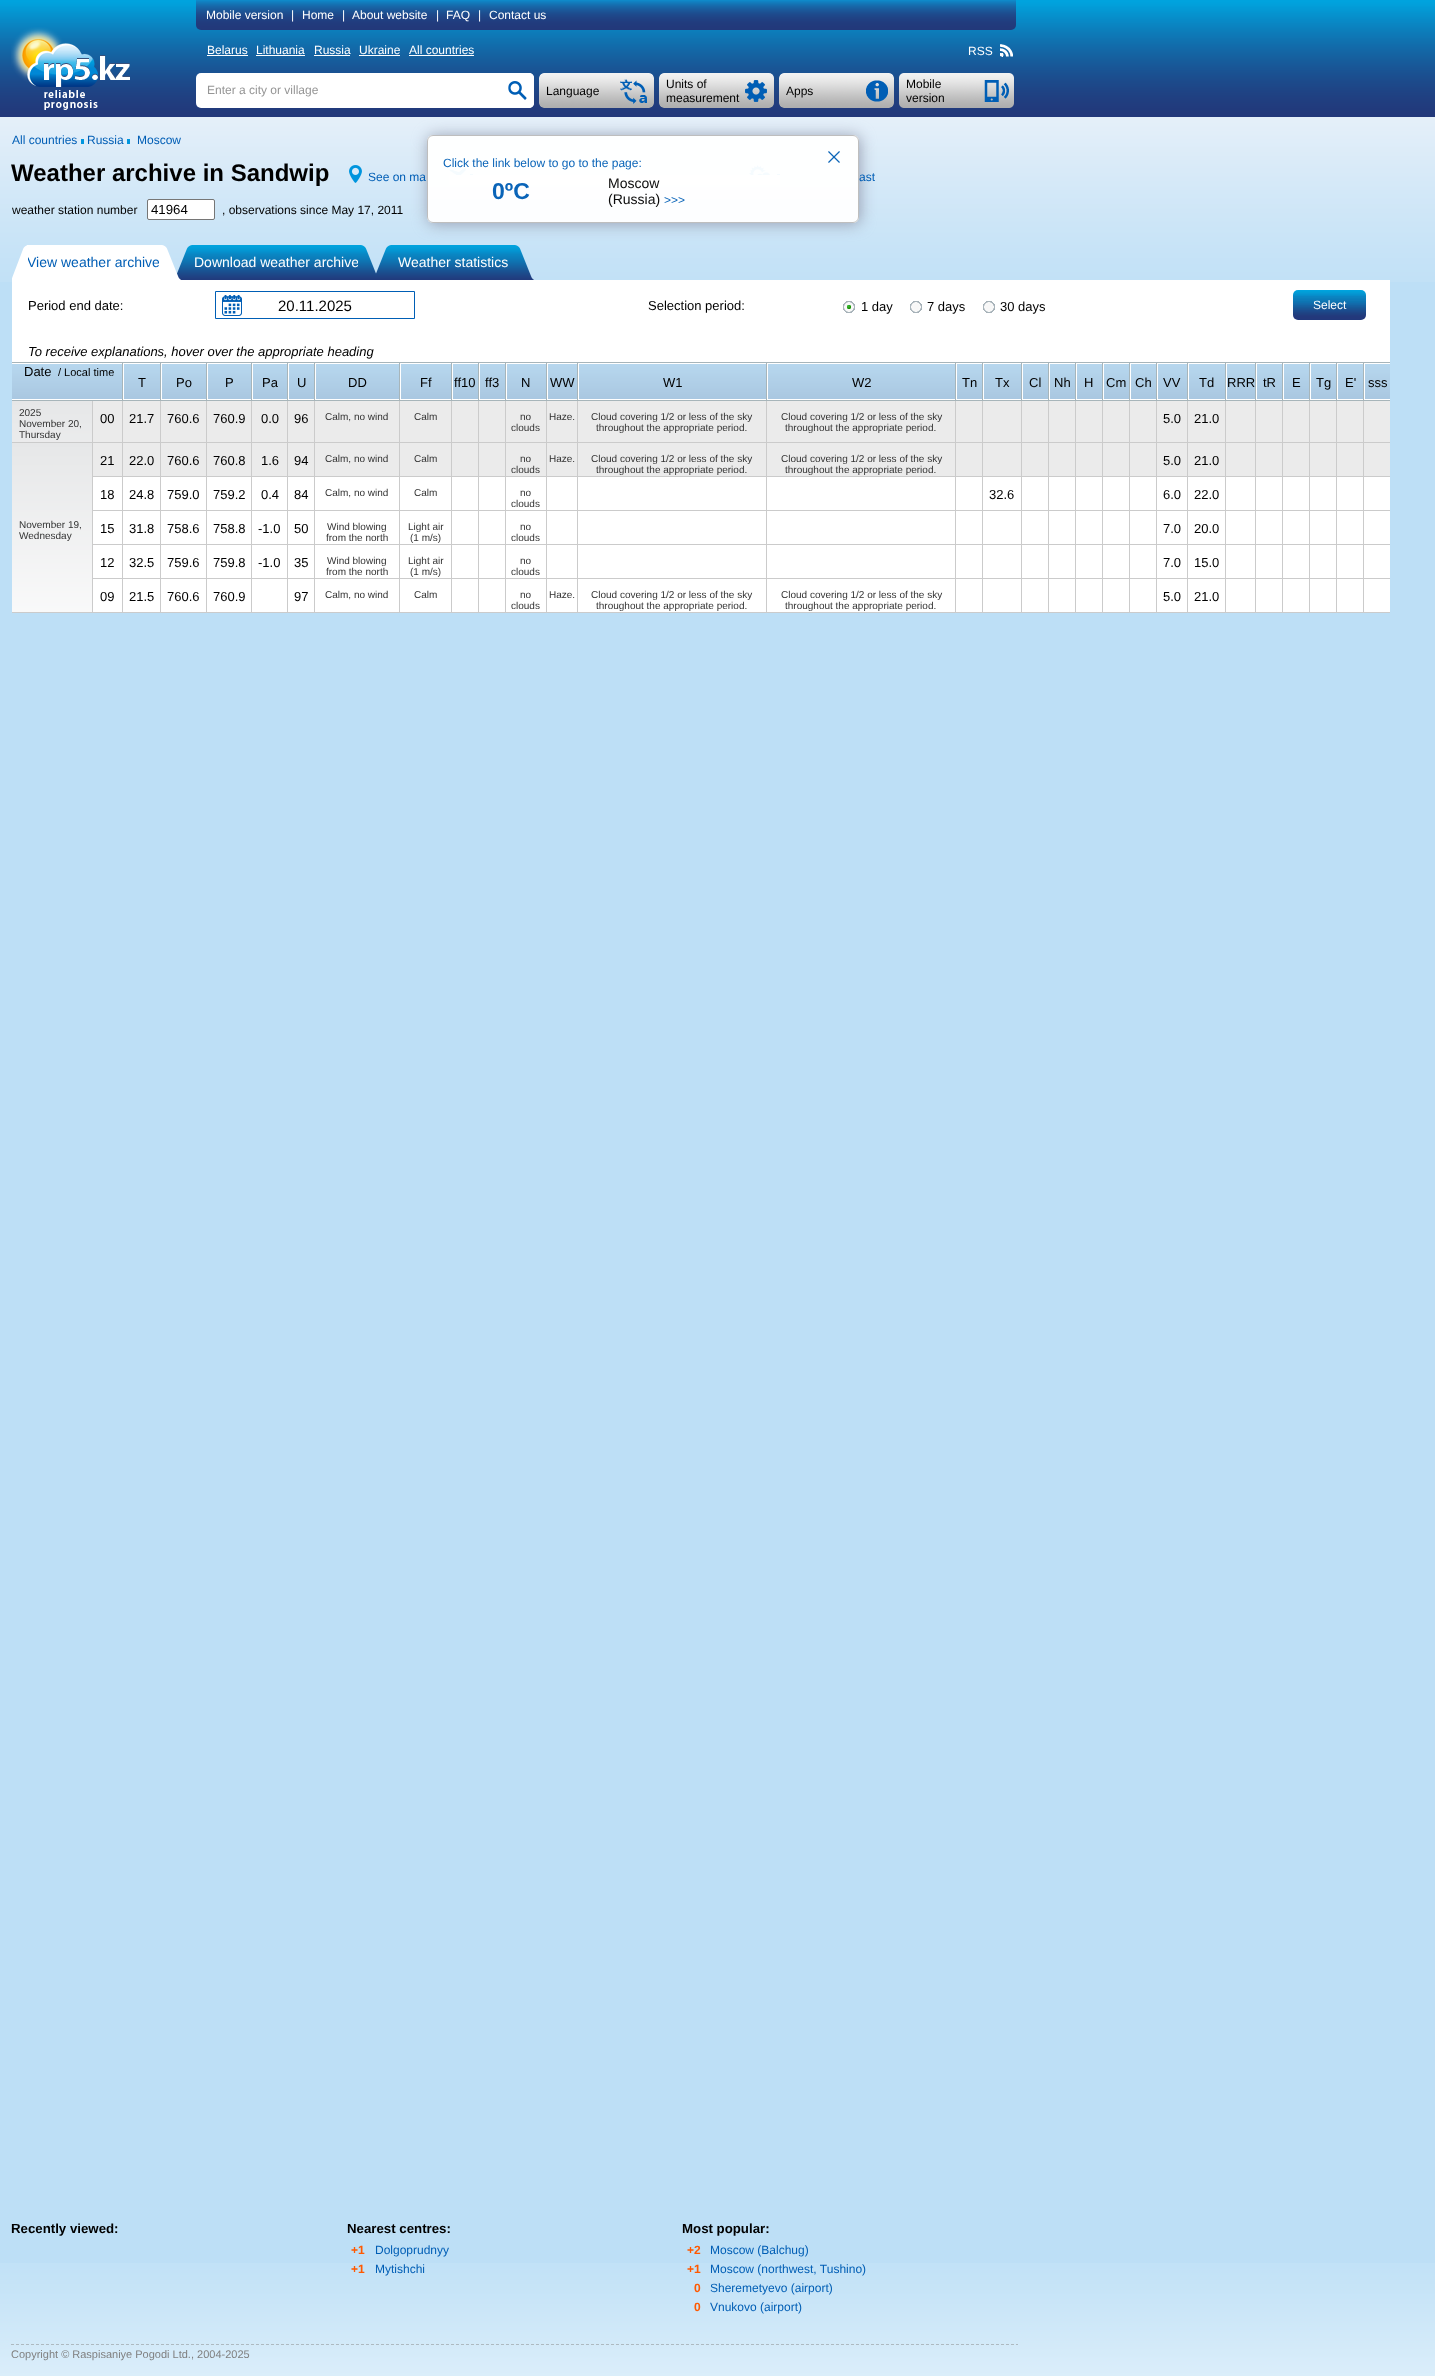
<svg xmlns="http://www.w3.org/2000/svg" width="1435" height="2376">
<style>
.a{font:12px Liberation Sans;fill:#fff}
.b{font:12px Liberation Sans;fill:#959595}
.c{font:12px Liberation Sans;fill:#000}
.d{font:12px Liberation Sans;fill:#005eb5}
.e{font:bold 24px Liberation Sans;fill:#000}
.f{font:13.25px Liberation Sans;fill:#000}
.g{font:14px Liberation Sans;fill:#005eb5}
.h{font:14px Liberation Sans;fill:#fff}
.i{font:13px Liberation Sans;fill:#000}
.j{font:15px Liberation Sans;fill:#000}
.k{font:italic 13px Liberation Sans;fill:#000}
.l{font:11px Liberation Sans;fill:#000}
.m{font:10px Liberation Sans;fill:#333}
.n{font:12px Liberation Sans;fill:#0a64b8}
.o{font:bold 23px Liberation Sans;fill:#0a64b8}
.p{font:14px Liberation Sans;fill:#0a0a0a}
.q{font:bold 13.25px Liberation Sans;fill:#000}
.r{font:bold 12px Liberation Sans;fill:#ff5900}
.s{font:11px Liberation Sans;fill:#808080}
</style>
<defs>
<clipPath id="clip1"><path d="M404 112h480v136h-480zm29 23h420c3.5 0 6 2.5 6 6v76c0 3.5-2.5 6-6 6h-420c-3.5 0-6-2.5-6-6v-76c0-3.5 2.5-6 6-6z" clip-rule="evenodd"/></clipPath>
</defs>
<rect width="100%" height="100%" fill="#bddff6"/>
<image href="1.png" x="0" y="123" width="1435" height="159"/>
<image href="2.png" x="0" y="0" width="1435" height="123"/>
<image href="3.png" x="196" y="0" width="820" height="30"/>
<image href="4.png" x="11" y="27" width="119" height="83"/>
<path fill="#fff" d="M207 55h41v1H207z"/>
<path fill="#fff" d="M256 55h49v1H256z"/>
<path fill="#fff" d="M314 55h36v1H314z"/>
<path fill="#fff" d="M359 55h41v1H359z"/>
<path fill="#fff" d="M409 55h65v1H409z"/>
<image href="5.png" x="1000" y="44" width="13" height="13"/>
<rect fill="#fff" x="196" y="73" width="338" height="35" rx="5"/>
<image href="6.png" x="508" y="73" width="26" height="35"/>
<image href="7.png" x="539" y="73" width="115" height="35"/>
<image href="8.png" x="659" y="73" width="115" height="35"/>
<image href="9.png" x="779" y="73" width="115" height="35"/>
<image href="10.png" x="899" y="73" width="115" height="35"/>
<path fill="#0096de" d="M81 139h3v5H81z"/>
<path fill="#0096de" d="M127 139h3v5H127z"/>
<image href="11.png" x="349" y="165" width="13" height="18"/>
<image href="12.png" x="449" y="168" width="17" height="16"/>
<path fill="#0096de" d="M470 174h3v5H470z"/>
<image href="13.png" x="749" y="165" width="24" height="20"/>
<path fill="#0096de" d="M777 174h3v5H777z"/>
<rect fill="#fff" stroke="#767676" x="147.5" y="199.5" width="67" height="20" rx="1.5"/>
<path fill="#fff" d="M27 245h132v35H27z"/>
<image href="16.png" x="176" y="245" width="19" height="35"/>
<image href="17.png" x="195" y="245" width="163" height="35"/>
<image href="20.png" x="394" y="245" width="119" height="35"/>
<image href="21.png" x="513" y="245" width="21" height="35"/>
<path fill="#fff" d="M12 280h1378v332H12z"/>
<image href="22.png" x="222" y="295" width="20" height="21"/>
<path fill="none" stroke="#005eb5" d="M215.5 291.5h199v27H215.5z"/>
<image href="23.png" x="843" y="301" width="12" height="12"/>
<image href="24.png" x="910" y="301" width="12" height="12"/>
<image href="24.png" x="983" y="301" width="12" height="12"/>
<image href="25.png" x="1293" y="290" width="73" height="30"/>
<path fill="#a7b5ba" d="M12 362h1378v1H12z"/>
<path fill="#a7b5ba" d="M12 400h1378v1H12z"/>
<image href="26.png" x="12" y="364" width="110" height="35"/>
<path fill="#a7b5ba" d="M122 362h1v39H122z"/>
<image href="27.png" x="124" y="364" width="36" height="35"/>
<path fill="#a7b5ba" d="M160 362h1v39H160z"/>
<image href="28.png" x="162" y="364" width="44" height="35"/>
<path fill="#a7b5ba" d="M206 362h1v39H206z"/>
<image href="29.png" x="208" y="364" width="43" height="35"/>
<path fill="#a7b5ba" d="M251 362h1v39H251z"/>
<image href="30.png" x="253" y="364" width="34" height="35"/>
<path fill="#a7b5ba" d="M287 362h1v39H287z"/>
<image href="31.png" x="289" y="364" width="25" height="35"/>
<path fill="#a7b5ba" d="M314 362h1v39H314z"/>
<image href="32.png" x="316" y="364" width="83" height="35"/>
<path fill="#a7b5ba" d="M399 362h1v39H399z"/>
<image href="33.png" x="401" y="364" width="50" height="35"/>
<path fill="#a7b5ba" d="M451 362h1v39H451z"/>
<image href="31.png" x="453" y="364" width="25" height="35"/>
<path fill="#a7b5ba" d="M478 362h1v39H478z"/>
<image href="31.png" x="480" y="364" width="25" height="35"/>
<path fill="#a7b5ba" d="M505 362h1v39H505z"/>
<image href="34.png" x="507" y="364" width="39" height="35"/>
<path fill="#a7b5ba" d="M546 362h1v39H546z"/>
<image href="35.png" x="548" y="364" width="29" height="35"/>
<path fill="#a7b5ba" d="M577 362h1v39H577z"/>
<image href="36.png" x="579" y="364" width="187" height="35"/>
<path fill="#a7b5ba" d="M766 362h1v39H766z"/>
<image href="36.png" x="768" y="364" width="187" height="35"/>
<path fill="#a7b5ba" d="M955 362h1v39H955z"/>
<image href="31.png" x="957" y="364" width="25" height="35"/>
<path fill="#a7b5ba" d="M982 362h1v39H982z"/>
<image href="37.png" x="984" y="364" width="37" height="35"/>
<path fill="#a7b5ba" d="M1021 362h1v39H1021z"/>
<image href="31.png" x="1023" y="364" width="25" height="35"/>
<path fill="#a7b5ba" d="M1048 362h1v39H1048z"/>
<image href="31.png" x="1050" y="364" width="25" height="35"/>
<path fill="#a7b5ba" d="M1075 362h1v39H1075z"/>
<image href="31.png" x="1077" y="364" width="25" height="35"/>
<path fill="#a7b5ba" d="M1102 362h1v39H1102z"/>
<image href="31.png" x="1104" y="364" width="25" height="35"/>
<path fill="#a7b5ba" d="M1129 362h1v39H1129z"/>
<image href="31.png" x="1131" y="364" width="25" height="35"/>
<path fill="#a7b5ba" d="M1156 362h1v39H1156z"/>
<image href="35.png" x="1158" y="364" width="29" height="35"/>
<path fill="#a7b5ba" d="M1187 362h1v39H1187z"/>
<image href="27.png" x="1189" y="364" width="36" height="35"/>
<path fill="#a7b5ba" d="M1225 362h1v39H1225z"/>
<image href="38.png" x="1227" y="364" width="28" height="35"/>
<path fill="#a7b5ba" d="M1255 362h1v39H1255z"/>
<image href="31.png" x="1257" y="364" width="25" height="35"/>
<path fill="#a7b5ba" d="M1282 362h1v39H1282z"/>
<image href="31.png" x="1284" y="364" width="25" height="35"/>
<path fill="#a7b5ba" d="M1309 362h1v39H1309z"/>
<image href="31.png" x="1311" y="364" width="25" height="35"/>
<path fill="#a7b5ba" d="M1336 362h1v39H1336z"/>
<image href="31.png" x="1338" y="364" width="25" height="35"/>
<path fill="#a7b5ba" d="M1363 362h1v39H1363z"/>
<image href="31.png" x="1365" y="364" width="25" height="35"/>
<image href="39.png" x="12" y="401" width="80" height="41"/>
<path fill="#cbcbcb" d="M12 442h1378v1H12z"/>
<path fill="#ebebeb" d="M93 401h29v41H93z"/>
<path fill="#cbcbcb" d="M92 401h1v42H92z"/>
<path fill="#ebebeb" d="M123 401h37v41H123z"/>
<path fill="#cbcbcb" d="M122 401h1v42H122z"/>
<path fill="#ebebeb" d="M161 401h45v41H161z"/>
<path fill="#cbcbcb" d="M160 401h1v42H160z"/>
<path fill="#ebebeb" d="M207 401h44v41H207z"/>
<path fill="#cbcbcb" d="M206 401h1v42H206z"/>
<path fill="#ebebeb" d="M252 401h35v41H252z"/>
<path fill="#cbcbcb" d="M251 401h1v42H251z"/>
<path fill="#ebebeb" d="M288 401h26v41H288z"/>
<path fill="#cbcbcb" d="M287 401h1v42H287z"/>
<path fill="#ebebeb" d="M315 401h84v41H315z"/>
<path fill="#cbcbcb" d="M314 401h1v42H314z"/>
<path fill="#ebebeb" d="M400 401h51v41H400z"/>
<path fill="#cbcbcb" d="M399 401h1v42H399z"/>
<path fill="#ebebeb" d="M452 401h26v41H452z"/>
<path fill="#cbcbcb" d="M451 401h1v42H451z"/>
<path fill="#ebebeb" d="M479 401h26v41H479z"/>
<path fill="#cbcbcb" d="M478 401h1v42H478z"/>
<path fill="#ebebeb" d="M506 401h40v41H506z"/>
<path fill="#cbcbcb" d="M505 401h1v42H505z"/>
<path fill="#ebebeb" d="M547 401h30v41H547z"/>
<path fill="#cbcbcb" d="M546 401h1v42H546z"/>
<path fill="#ebebeb" d="M578 401h188v41H578z"/>
<path fill="#cbcbcb" d="M577 401h1v42H577z"/>
<path fill="#ebebeb" d="M767 401h188v41H767z"/>
<path fill="#cbcbcb" d="M766 401h1v42H766z"/>
<path fill="#ebebeb" d="M956 401h26v41H956z"/>
<path fill="#cbcbcb" d="M955 401h1v42H955z"/>
<path fill="#ebebeb" d="M983 401h38v41H983z"/>
<path fill="#cbcbcb" d="M982 401h1v42H982z"/>
<path fill="#ebebeb" d="M1022 401h26v41H1022z"/>
<path fill="#cbcbcb" d="M1021 401h1v42H1021z"/>
<path fill="#ebebeb" d="M1049 401h26v41H1049z"/>
<path fill="#cbcbcb" d="M1048 401h1v42H1048z"/>
<path fill="#ebebeb" d="M1076 401h26v41H1076z"/>
<path fill="#cbcbcb" d="M1075 401h1v42H1075z"/>
<path fill="#ebebeb" d="M1103 401h26v41H1103z"/>
<path fill="#cbcbcb" d="M1102 401h1v42H1102z"/>
<path fill="#ebebeb" d="M1130 401h26v41H1130z"/>
<path fill="#cbcbcb" d="M1129 401h1v42H1129z"/>
<path fill="#ebebeb" d="M1157 401h30v41H1157z"/>
<path fill="#cbcbcb" d="M1156 401h1v42H1156z"/>
<path fill="#ebebeb" d="M1188 401h37v41H1188z"/>
<path fill="#cbcbcb" d="M1187 401h1v42H1187z"/>
<path fill="#ebebeb" d="M1226 401h29v41H1226z"/>
<path fill="#cbcbcb" d="M1225 401h1v42H1225z"/>
<path fill="#ebebeb" d="M1256 401h26v41H1256z"/>
<path fill="#cbcbcb" d="M1255 401h1v42H1255z"/>
<path fill="#ebebeb" d="M1283 401h26v41H1283z"/>
<path fill="#cbcbcb" d="M1282 401h1v42H1282z"/>
<path fill="#ebebeb" d="M1310 401h26v41H1310z"/>
<path fill="#cbcbcb" d="M1309 401h1v42H1309z"/>
<path fill="#ebebeb" d="M1337 401h26v41H1337z"/>
<path fill="#cbcbcb" d="M1336 401h1v42H1336z"/>
<path fill="#ebebeb" d="M1364 401h26v41H1364z"/>
<path fill="#cbcbcb" d="M1363 401h1v42H1363z"/>
<path fill="#ebebeb" d="M93 443h29v33H93z"/>
<path fill="#cbcbcb" d="M92 476h1298v1H92z"/>
<path fill="#cbcbcb" d="M92 443h1v34H92z"/>
<path fill="#ebebeb" d="M123 443h37v33H123z"/>
<path fill="#cbcbcb" d="M122 443h1v34H122z"/>
<path fill="#ebebeb" d="M161 443h45v33H161z"/>
<path fill="#cbcbcb" d="M160 443h1v34H160z"/>
<path fill="#ebebeb" d="M207 443h44v33H207z"/>
<path fill="#cbcbcb" d="M206 443h1v34H206z"/>
<path fill="#ebebeb" d="M252 443h35v33H252z"/>
<path fill="#cbcbcb" d="M251 443h1v34H251z"/>
<path fill="#ebebeb" d="M288 443h26v33H288z"/>
<path fill="#cbcbcb" d="M287 443h1v34H287z"/>
<path fill="#ebebeb" d="M315 443h84v33H315z"/>
<path fill="#cbcbcb" d="M314 443h1v34H314z"/>
<path fill="#ebebeb" d="M400 443h51v33H400z"/>
<path fill="#cbcbcb" d="M399 443h1v34H399z"/>
<path fill="#ebebeb" d="M452 443h26v33H452z"/>
<path fill="#cbcbcb" d="M451 443h1v34H451z"/>
<path fill="#ebebeb" d="M479 443h26v33H479z"/>
<path fill="#cbcbcb" d="M478 443h1v34H478z"/>
<path fill="#ebebeb" d="M506 443h40v33H506z"/>
<path fill="#cbcbcb" d="M505 443h1v34H505z"/>
<path fill="#ebebeb" d="M547 443h30v33H547z"/>
<path fill="#cbcbcb" d="M546 443h1v34H546z"/>
<path fill="#ebebeb" d="M578 443h188v33H578z"/>
<path fill="#cbcbcb" d="M577 443h1v34H577z"/>
<path fill="#ebebeb" d="M767 443h188v33H767z"/>
<path fill="#cbcbcb" d="M766 443h1v34H766z"/>
<path fill="#ebebeb" d="M956 443h26v33H956z"/>
<path fill="#cbcbcb" d="M955 443h1v34H955z"/>
<path fill="#ebebeb" d="M983 443h38v33H983z"/>
<path fill="#cbcbcb" d="M982 443h1v34H982z"/>
<path fill="#ebebeb" d="M1022 443h26v33H1022z"/>
<path fill="#cbcbcb" d="M1021 443h1v34H1021z"/>
<path fill="#ebebeb" d="M1049 443h26v33H1049z"/>
<path fill="#cbcbcb" d="M1048 443h1v34H1048z"/>
<path fill="#ebebeb" d="M1076 443h26v33H1076z"/>
<path fill="#cbcbcb" d="M1075 443h1v34H1075z"/>
<path fill="#ebebeb" d="M1103 443h26v33H1103z"/>
<path fill="#cbcbcb" d="M1102 443h1v34H1102z"/>
<path fill="#ebebeb" d="M1130 443h26v33H1130z"/>
<path fill="#cbcbcb" d="M1129 443h1v34H1129z"/>
<path fill="#ebebeb" d="M1157 443h30v33H1157z"/>
<path fill="#cbcbcb" d="M1156 443h1v34H1156z"/>
<path fill="#ebebeb" d="M1188 443h37v33H1188z"/>
<path fill="#cbcbcb" d="M1187 443h1v34H1187z"/>
<path fill="#ebebeb" d="M1226 443h29v33H1226z"/>
<path fill="#cbcbcb" d="M1225 443h1v34H1225z"/>
<path fill="#ebebeb" d="M1256 443h26v33H1256z"/>
<path fill="#cbcbcb" d="M1255 443h1v34H1255z"/>
<path fill="#ebebeb" d="M1283 443h26v33H1283z"/>
<path fill="#cbcbcb" d="M1282 443h1v34H1282z"/>
<path fill="#ebebeb" d="M1310 443h26v33H1310z"/>
<path fill="#cbcbcb" d="M1309 443h1v34H1309z"/>
<path fill="#ebebeb" d="M1337 443h26v33H1337z"/>
<path fill="#cbcbcb" d="M1336 443h1v34H1336z"/>
<path fill="#ebebeb" d="M1364 443h26v33H1364z"/>
<path fill="#cbcbcb" d="M1363 443h1v34H1363z"/>
<image href="40.png" x="12" y="443" width="80" height="169"/>
<path fill="#cbcbcb" d="M12 612h1378v1H12z"/>
<path fill="#cbcbcb" d="M92 510h1298v1H92z"/>
<path fill="#cbcbcb" d="M92 477h1v34H92z"/>
<path fill="#cbcbcb" d="M122 477h1v34H122z"/>
<path fill="#cbcbcb" d="M160 477h1v34H160z"/>
<path fill="#cbcbcb" d="M206 477h1v34H206z"/>
<path fill="#cbcbcb" d="M251 477h1v34H251z"/>
<path fill="#cbcbcb" d="M287 477h1v34H287z"/>
<path fill="#cbcbcb" d="M314 477h1v34H314z"/>
<path fill="#cbcbcb" d="M399 477h1v34H399z"/>
<path fill="#cbcbcb" d="M451 477h1v34H451z"/>
<path fill="#cbcbcb" d="M478 477h1v34H478z"/>
<path fill="#cbcbcb" d="M505 477h1v34H505z"/>
<path fill="#cbcbcb" d="M546 477h1v34H546z"/>
<path fill="#cbcbcb" d="M577 477h1v34H577z"/>
<path fill="#cbcbcb" d="M766 477h1v34H766z"/>
<path fill="#cbcbcb" d="M955 477h1v34H955z"/>
<path fill="#cbcbcb" d="M982 477h1v34H982z"/>
<path fill="#cbcbcb" d="M1021 477h1v34H1021z"/>
<path fill="#cbcbcb" d="M1048 477h1v34H1048z"/>
<path fill="#cbcbcb" d="M1075 477h1v34H1075z"/>
<path fill="#cbcbcb" d="M1102 477h1v34H1102z"/>
<path fill="#cbcbcb" d="M1129 477h1v34H1129z"/>
<path fill="#cbcbcb" d="M1156 477h1v34H1156z"/>
<path fill="#cbcbcb" d="M1187 477h1v34H1187z"/>
<path fill="#cbcbcb" d="M1225 477h1v34H1225z"/>
<path fill="#cbcbcb" d="M1255 477h1v34H1255z"/>
<path fill="#cbcbcb" d="M1282 477h1v34H1282z"/>
<path fill="#cbcbcb" d="M1309 477h1v34H1309z"/>
<path fill="#cbcbcb" d="M1336 477h1v34H1336z"/>
<path fill="#cbcbcb" d="M1363 477h1v34H1363z"/>
<path fill="#cbcbcb" d="M92 544h1298v1H92z"/>
<path fill="#cbcbcb" d="M92 511h1v34H92z"/>
<path fill="#cbcbcb" d="M122 511h1v34H122z"/>
<path fill="#cbcbcb" d="M160 511h1v34H160z"/>
<path fill="#cbcbcb" d="M206 511h1v34H206z"/>
<path fill="#cbcbcb" d="M251 511h1v34H251z"/>
<path fill="#cbcbcb" d="M287 511h1v34H287z"/>
<path fill="#cbcbcb" d="M314 511h1v34H314z"/>
<path fill="#cbcbcb" d="M399 511h1v34H399z"/>
<path fill="#cbcbcb" d="M451 511h1v34H451z"/>
<path fill="#cbcbcb" d="M478 511h1v34H478z"/>
<path fill="#cbcbcb" d="M505 511h1v34H505z"/>
<path fill="#cbcbcb" d="M546 511h1v34H546z"/>
<path fill="#cbcbcb" d="M577 511h1v34H577z"/>
<path fill="#cbcbcb" d="M766 511h1v34H766z"/>
<path fill="#cbcbcb" d="M955 511h1v34H955z"/>
<path fill="#cbcbcb" d="M982 511h1v34H982z"/>
<path fill="#cbcbcb" d="M1021 511h1v34H1021z"/>
<path fill="#cbcbcb" d="M1048 511h1v34H1048z"/>
<path fill="#cbcbcb" d="M1075 511h1v34H1075z"/>
<path fill="#cbcbcb" d="M1102 511h1v34H1102z"/>
<path fill="#cbcbcb" d="M1129 511h1v34H1129z"/>
<path fill="#cbcbcb" d="M1156 511h1v34H1156z"/>
<path fill="#cbcbcb" d="M1187 511h1v34H1187z"/>
<path fill="#cbcbcb" d="M1225 511h1v34H1225z"/>
<path fill="#cbcbcb" d="M1255 511h1v34H1255z"/>
<path fill="#cbcbcb" d="M1282 511h1v34H1282z"/>
<path fill="#cbcbcb" d="M1309 511h1v34H1309z"/>
<path fill="#cbcbcb" d="M1336 511h1v34H1336z"/>
<path fill="#cbcbcb" d="M1363 511h1v34H1363z"/>
<path fill="#cbcbcb" d="M92 578h1298v1H92z"/>
<path fill="#cbcbcb" d="M92 545h1v68H92z"/>
<path fill="#cbcbcb" d="M122 545h1v68H122z"/>
<path fill="#cbcbcb" d="M160 545h1v68H160z"/>
<path fill="#cbcbcb" d="M206 545h1v68H206z"/>
<path fill="#cbcbcb" d="M251 545h1v68H251z"/>
<path fill="#cbcbcb" d="M287 545h1v68H287z"/>
<path fill="#cbcbcb" d="M314 545h1v68H314z"/>
<path fill="#cbcbcb" d="M399 545h1v68H399z"/>
<path fill="#cbcbcb" d="M451 545h1v68H451z"/>
<path fill="#cbcbcb" d="M478 545h1v68H478z"/>
<path fill="#cbcbcb" d="M505 545h1v68H505z"/>
<path fill="#cbcbcb" d="M546 545h1v68H546z"/>
<path fill="#cbcbcb" d="M577 545h1v68H577z"/>
<path fill="#cbcbcb" d="M766 545h1v68H766z"/>
<path fill="#cbcbcb" d="M955 545h1v68H955z"/>
<path fill="#cbcbcb" d="M982 545h1v68H982z"/>
<path fill="#cbcbcb" d="M1021 545h1v68H1021z"/>
<path fill="#cbcbcb" d="M1048 545h1v68H1048z"/>
<path fill="#cbcbcb" d="M1075 545h1v68H1075z"/>
<path fill="#cbcbcb" d="M1102 545h1v68H1102z"/>
<path fill="#cbcbcb" d="M1129 545h1v68H1129z"/>
<path fill="#cbcbcb" d="M1156 545h1v68H1156z"/>
<path fill="#cbcbcb" d="M1187 545h1v68H1187z"/>
<path fill="#cbcbcb" d="M1225 545h1v68H1225z"/>
<path fill="#cbcbcb" d="M1255 545h1v68H1255z"/>
<path fill="#cbcbcb" d="M1282 545h1v68H1282z"/>
<path fill="#cbcbcb" d="M1309 545h1v68H1309z"/>
<path fill="#cbcbcb" d="M1336 545h1v68H1336z"/>
<path fill="#cbcbcb" d="M1363 545h1v68H1363z"/>
<g clip-path="url(#clip1)">
<rect fill="#969caff5" filter="blur(7.5px)" x="428" y="136" width="432" height="88" rx="6"/>
</g>
<rect fill="#fffffff5" x="427" y="135" width="432" height="88" rx="6"/>
<rect fill="none" stroke="#bbbbbbf5" x="427.5" y="135.5" width="431" height="87" rx="5.5"/>
<image href="41.png" x="828" y="151" width="12" height="12"/>
<path fill="#fffffff5" d="M449 175h331v10H449z"/>
<image href="42.png" x="0" y="2263" width="1435" height="113"/>
<path fill="none" stroke="#aeb9c0" stroke-dasharray="3 2" d="M11 2344.5h1007"/>
<text class="a" x="206" y="19">Mobile version</text>
<text class="a" x="291" y="19">|</text>
<text class="a" x="302" y="19">Home</text>
<text class="a" x="342" y="19">|</text>
<text class="a" x="352" y="19">About website</text>
<text class="a" x="436" y="19">|</text>
<text class="a" x="446" y="19">FAQ</text>
<text class="a" x="478" y="19">|</text>
<text class="a" x="489" y="19">Contact us</text>
<text class="a" x="207" y="54">Belarus</text>
<text class="a" x="256" y="54">Lithuania</text>
<text class="a" x="314" y="54">Russia</text>
<text class="a" x="359" y="54">Ukraine</text>
<text class="a" x="409" y="54">All countries</text>
<text class="a" x="968" y="55">RSS</text>
<text class="b" x="207" y="94">Enter a city or village</text>
<text class="c" x="546" y="95">Language</text>
<text class="c" x="666" y="88">Units of</text>
<text class="c" x="666" y="102">measurement</text>
<text class="c" x="786" y="95">Apps</text>
<text class="c" x="906" y="88">Mobile</text>
<text class="c" x="906" y="102">version</text>
<text class="d" x="12" y="144">All countries</text>
<text class="d" x="87" y="144">Russia</text>
<text class="d" x="137" y="144">Moscow</text>
<text class="e" x="11" y="181">Weather archive in Sandwip</text>
<text class="d" x="368" y="181">See on ma</text>
<text class="d" x="859" y="181">ast</text>
<text class="c" x="12" y="214">weather station number</text>
<text class="f" x="151" y="214">41964</text>
<text class="c" x="222" y="214">, observations since May 17, 2011</text>
<text class="g" x="27" y="267">View weather archive</text>
<image href="14.png" x="12" y="245" width="16" height="35"/>
<image href="15.png" x="159" y="245" width="22" height="35"/>
<text class="h" x="194" y="267">Download weather archive</text>
<image href="18.png" x="358" y="245" width="19" height="35"/>
<image href="19.png" x="376" y="245" width="18" height="35"/>
<text class="h" x="398" y="267">Weather statistics</text>
<text class="i" x="28" y="310">Period end date:</text>
<text class="j" x="278" y="311">20.11.2025</text>
<text class="i" x="648" y="310">Selection period:</text>
<text class="i" x="861" y="311">1 day</text>
<text class="i" x="927" y="311">7 days</text>
<text class="i" x="1000" y="311">30 days</text>
<text class="a" x="1313" y="309">Select</text>
<text class="k" x="28" y="356">To receive explanations, hover over the appropriate heading</text>
<text class="i" x="24" y="376">Date</text>
<text class="l" x="58" y="376">/ Local time</text>
<text class="i" x="138" y="387">T</text>
<text class="i" x="176" y="387">Po</text>
<text class="i" x="225" y="387">P</text>
<text class="i" x="262" y="387">Pa</text>
<text class="i" x="297" y="387">U</text>
<text class="i" x="348" y="387">DD</text>
<text class="i" x="420" y="387">Ff</text>
<text class="i" x="454" y="387">ff10</text>
<text class="i" x="485" y="387">ff3</text>
<text class="i" x="521" y="387">N</text>
<text class="i" x="550" y="387">WW</text>
<text class="i" x="663" y="387">W1</text>
<text class="i" x="852" y="387">W2</text>
<text class="i" x="962" y="387">Tn</text>
<text class="i" x="995" y="387">Tx</text>
<text class="i" x="1029" y="387">Cl</text>
<text class="i" x="1054" y="387">Nh</text>
<text class="i" x="1084" y="387">H</text>
<text class="i" x="1106" y="387">Cm</text>
<text class="i" x="1135" y="387">Ch</text>
<text class="i" x="1163" y="387">VV</text>
<text class="i" x="1199" y="387">Td</text>
<text class="i" x="1227" y="387">RRR</text>
<text class="i" x="1263" y="387">tR</text>
<text class="i" x="1292" y="387">E</text>
<text class="i" x="1316" y="387">Tg</text>
<text class="i" x="1345" y="387">E'</text>
<text class="i" x="1368" y="387">sss</text>
<text class="m" x="19" y="416">2025</text>
<text class="m" x="19" y="427">November 20,</text>
<text class="m" x="19" y="438">Thursday</text>
<text class="i" x="100" y="423">00</text>
<text class="i" x="129" y="423">21.7</text>
<text class="i" x="167" y="423">760.6</text>
<text class="i" x="213" y="423">760.9</text>
<text class="i" x="261" y="423">0.0</text>
<text class="i" x="294" y="423">96</text>
<text class="m" x="325" y="420">Calm, no wind</text>
<text class="m" x="414" y="420">Calm</text>
<text class="m" x="520" y="420">no</text>
<text class="m" x="511" y="431">clouds</text>
<text class="m" x="549" y="420">Haze.</text>
<text class="m" x="591" y="420">Cloud covering 1/2 or less of the sky</text>
<text class="m" x="596" y="431">throughout the appropriate period.</text>
<text class="m" x="781" y="420">Cloud covering 1/2 or less of the sky</text>
<text class="m" x="785" y="431">throughout the appropriate period.</text>
<text class="i" x="1163" y="423">5.0</text>
<text class="i" x="1194" y="423">21.0</text>
<text class="i" x="100" y="465">21</text>
<text class="i" x="129" y="465">22.0</text>
<text class="i" x="167" y="465">760.6</text>
<text class="i" x="213" y="465">760.8</text>
<text class="i" x="261" y="465">1.6</text>
<text class="i" x="294" y="465">94</text>
<text class="m" x="325" y="462">Calm, no wind</text>
<text class="m" x="414" y="462">Calm</text>
<text class="m" x="520" y="462">no</text>
<text class="m" x="511" y="473">clouds</text>
<text class="m" x="549" y="462">Haze.</text>
<text class="m" x="591" y="462">Cloud covering 1/2 or less of the sky</text>
<text class="m" x="596" y="473">throughout the appropriate period.</text>
<text class="m" x="781" y="462">Cloud covering 1/2 or less of the sky</text>
<text class="m" x="785" y="473">throughout the appropriate period.</text>
<text class="i" x="1163" y="465">5.0</text>
<text class="i" x="1194" y="465">21.0</text>
<text class="m" x="19" y="528">November 19,</text>
<text class="m" x="19" y="539">Wednesday</text>
<text class="i" x="100" y="499">18</text>
<text class="i" x="129" y="499">24.8</text>
<text class="i" x="167" y="499">759.0</text>
<text class="i" x="213" y="499">759.2</text>
<text class="i" x="261" y="499">0.4</text>
<text class="i" x="294" y="499">84</text>
<text class="m" x="325" y="496">Calm, no wind</text>
<text class="m" x="414" y="496">Calm</text>
<text class="m" x="520" y="496">no</text>
<text class="m" x="511" y="507">clouds</text>
<text class="i" x="989" y="499">32.6</text>
<text class="i" x="1163" y="499">6.0</text>
<text class="i" x="1194" y="499">22.0</text>
<text class="i" x="100" y="533">15</text>
<text class="i" x="129" y="533">31.8</text>
<text class="i" x="167" y="533">758.6</text>
<text class="i" x="213" y="533">758.8</text>
<text class="i" x="258" y="533">-1.0</text>
<text class="i" x="294" y="533">50</text>
<text class="m" x="327" y="530">Wind blowing</text>
<text class="m" x="326" y="541">from the north</text>
<text class="m" x="408" y="530">Light air</text>
<text class="m" x="410" y="541">(1 m/s)</text>
<text class="m" x="520" y="530">no</text>
<text class="m" x="511" y="541">clouds</text>
<text class="i" x="1163" y="533">7.0</text>
<text class="i" x="1194" y="533">20.0</text>
<text class="i" x="100" y="567">12</text>
<text class="i" x="129" y="567">32.5</text>
<text class="i" x="167" y="567">759.6</text>
<text class="i" x="213" y="567">759.8</text>
<text class="i" x="258" y="567">-1.0</text>
<text class="i" x="294" y="567">35</text>
<text class="m" x="327" y="564">Wind blowing</text>
<text class="m" x="326" y="575">from the north</text>
<text class="m" x="408" y="564">Light air</text>
<text class="m" x="410" y="575">(1 m/s)</text>
<text class="m" x="520" y="564">no</text>
<text class="m" x="511" y="575">clouds</text>
<text class="i" x="1163" y="567">7.0</text>
<text class="i" x="1194" y="567">15.0</text>
<text class="i" x="100" y="601">09</text>
<text class="i" x="129" y="601">21.5</text>
<text class="i" x="167" y="601">760.6</text>
<text class="i" x="213" y="601">760.9</text>
<text class="i" x="294" y="601">97</text>
<text class="m" x="325" y="598">Calm, no wind</text>
<text class="m" x="414" y="598">Calm</text>
<text class="m" x="520" y="598">no</text>
<text class="m" x="511" y="609">clouds</text>
<text class="m" x="549" y="598">Haze.</text>
<text class="m" x="591" y="598">Cloud covering 1/2 or less of the sky</text>
<text class="m" x="596" y="609">throughout the appropriate period.</text>
<text class="m" x="781" y="598">Cloud covering 1/2 or less of the sky</text>
<text class="m" x="785" y="609">throughout the appropriate period.</text>
<text class="i" x="1163" y="601">5.0</text>
<text class="i" x="1194" y="601">21.0</text>
<text class="n" x="443" y="167">Click the link below to go to the page:</text>
<text class="o" x="492" y="199">0ºC</text>
<text class="p" x="608" y="188">Moscow</text>
<text class="p" x="608" y="204">(Russia)</text>
<text class="n" x="664" y="204">&gt;&gt;&gt;</text>
<text class="q" x="11" y="2233">Recently viewed:</text>
<text class="q" x="347" y="2233">Nearest centres:</text>
<text class="r" x="351" y="2254">+1</text>
<text class="d" x="375" y="2254">Dolgoprudnyy</text>
<text class="r" x="351" y="2273">+1</text>
<text class="d" x="375" y="2273">Mytishchi</text>
<text class="q" x="682" y="2233">Most popular:</text>
<text class="r" x="687" y="2254">+2</text>
<text class="d" x="710" y="2254">Moscow (Balchug)</text>
<text class="r" x="687" y="2273">+1</text>
<text class="d" x="710" y="2273">Moscow (northwest, Tushino)</text>
<text class="r" x="694" y="2292">0</text>
<text class="d" x="710" y="2292">Sheremetyevo (airport)</text>
<text class="r" x="694" y="2311">0</text>
<text class="d" x="710" y="2311">Vnukovo (airport)</text>
<text class="s" x="11" y="2358">Copyright © Raspisaniye Pogodi Ltd., 2004-2025</text>
</svg>
